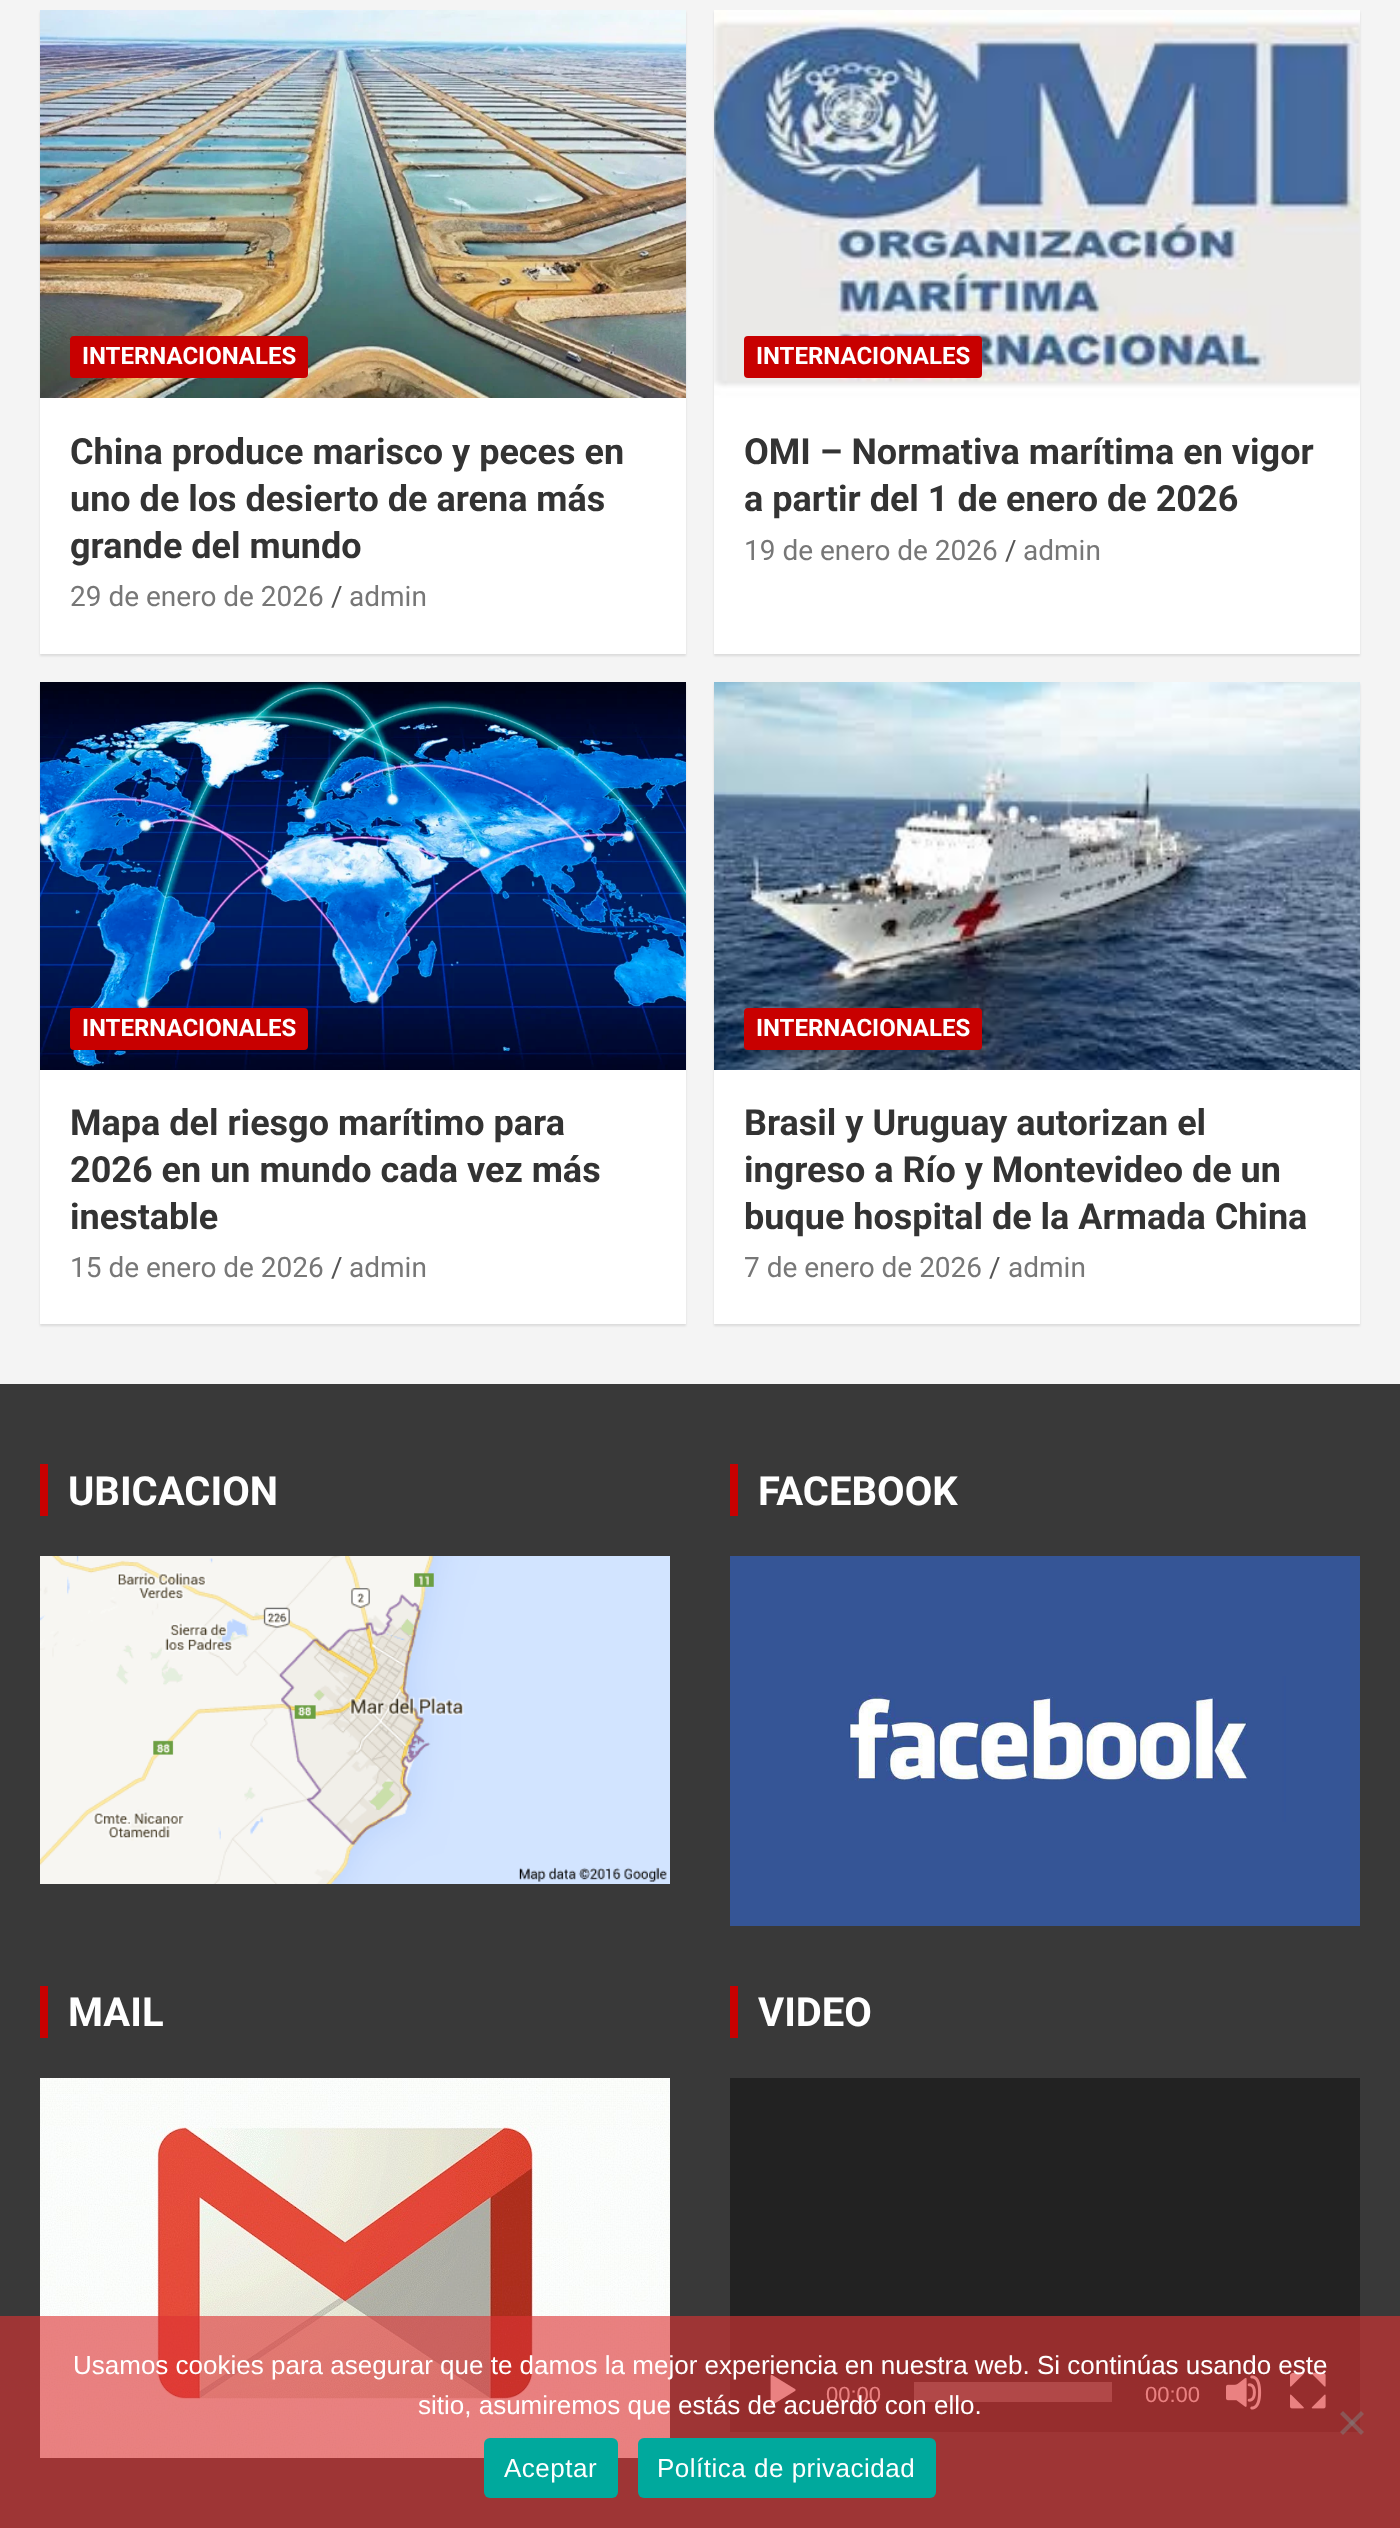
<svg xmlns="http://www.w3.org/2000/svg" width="1400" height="2528">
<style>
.a{font:bold 24px Roboto;fill:#fff}
.b{font:bold 36px Roboto;fill:#333}
.c{font:28px Roboto;fill:#777}
.d{font:28px Roboto;fill:#555}
.e{font:bold 40px Roboto;fill:#fff}
.f{font:22px Liberation Sans;fill:#fff}
.g{font:26px Liberation Sans;fill:#fff}
.h{font:26px Liberation Sans;letter-spacing:0.5px;fill:#fff}
</style>
<rect width="100%" height="100%" fill="#f4f4f4"/>
<path fill="#0000001a" filter="blur(1px)" d="M40 12h646v644H40z"/>
<path fill="#fff" d="M40 398h646v256H40z"/>
<image href="1.png" x="40" y="10" width="646" height="388"/>
<rect fill="#c80000" x="70" y="336" width="238" height="42" rx="4"/>
<path fill="#0000001a" filter="blur(1px)" d="M714 12h646v644H714z"/>
<path fill="#fff" d="M714 398h646v256H714z"/>
<image href="2.png" x="714" y="10" width="646" height="388"/>
<rect fill="#c80000" x="744" y="336" width="238" height="42" rx="4"/>
<path fill="#0000001a" filter="blur(1px)" d="M40 684h646v642H40z"/>
<path fill="#fff" d="M40 1070h646v254H40z"/>
<image href="3.png" x="40" y="682" width="646" height="388"/>
<rect fill="#c80000" x="70" y="1008" width="238" height="42" rx="4"/>
<path fill="#0000001a" filter="blur(1px)" d="M714 684h646v642H714z"/>
<path fill="#fff" d="M714 1070h646v254H714z"/>
<image href="4.png" x="714" y="682" width="646" height="388"/>
<rect fill="#c80000" x="744" y="1008" width="238" height="42" rx="4"/>
<path fill="#393939" d="M0 1384h1400v1144H0z"/>
<path fill="#c80000" d="M40 1464h8v52H40z"/>
<image href="5.png" x="40" y="1556" width="630" height="328"/>
<path fill="#c80000" d="M730 1464h8v52H730z"/>
<image href="6.png" x="730" y="1556" width="630" height="370"/>
<path fill="#c80000" d="M40 1986h8v52H40z"/>
<image href="7.png" x="40" y="2078" width="630" height="380"/>
<path fill="#c80000" d="M730 1986h8v52H730z"/>
<path fill="#222" d="M730 2078h630v354H730z"/>
<image href="8.png" x="770" y="2374" width="26" height="32"/>
<path fill="#6b6b6b" d="M914 2382h198v20H914z"/>
<image href="9.png" x="1226" y="2375" width="36" height="35"/>
<image href="10.png" x="1290" y="2372" width="36" height="37"/>
<text class="a" x="82" y="364">INTERNACIONALES</text>
<text class="b" x="70" y="464">China produce marisco y peces en</text>
<text class="b" x="70" y="511">uno de los desierto de arena más</text>
<text class="b" x="70" y="558">grande del mundo</text>
<text class="c" x="70" y="606">29 de enero de 2026</text>
<text class="d" x="331" y="606">/</text>
<text class="c" x="349" y="606">admin</text>
<text class="a" x="756" y="364">INTERNACIONALES</text>
<text class="b" x="744" y="464">OMI – Normativa marítima en vigor</text>
<text class="b" x="744" y="511">a partir del 1 de enero de 2026</text>
<text class="c" x="744" y="560">19 de enero de 2026</text>
<text class="d" x="1005" y="560">/</text>
<text class="c" x="1023" y="560">admin</text>
<text class="a" x="82" y="1036">INTERNACIONALES</text>
<text class="b" x="70" y="1135">Mapa del riesgo marítimo para</text>
<text class="b" x="70" y="1182">2026 en un mundo cada vez más</text>
<text class="b" x="70" y="1229">inestable</text>
<text class="c" x="70" y="1277">15 de enero de 2026</text>
<text class="d" x="331" y="1277">/</text>
<text class="c" x="349" y="1277">admin</text>
<text class="a" x="756" y="1036">INTERNACIONALES</text>
<text class="b" x="744" y="1135">Brasil y Uruguay autorizan el</text>
<text class="b" x="744" y="1182">ingreso a Río y Montevideo de un</text>
<text class="b" x="744" y="1229">buque hospital de la Armada China</text>
<text class="c" x="744" y="1277">7 de enero de 2026</text>
<text class="d" x="989" y="1277">/</text>
<text class="c" x="1008" y="1277">admin</text>
<text class="e" x="68" y="1505">UBICACION</text>
<text class="e" x="758" y="1505">FACEBOOK</text>
<text class="e" x="68" y="2026">MAIL</text>
<text class="e" x="758" y="2026">VIDEO</text>
<text class="f" x="826" y="2402">00:00</text>
<text class="f" x="1145" y="2402">00:00</text>
<path fill="#dd33339e" d="M0 2316h1400v212H0z"/>
<text class="g" x="73" y="2374">Usamos cookies para asegurar que te damos la mejor experiencia en nuestra web. Si continúas usando este</text>
<text class="g" x="418" y="2414">sitio, asumiremos que estás de acuerdo con ello.</text>
<path fill="#80808080" d="M1361 2411l3 3l-21 21l-3-3z"/>
<path fill="#80808080" d="M1340 2414l3-3l21 21l-3 3z"/>
<rect fill="#00a99d" x="484" y="2438" width="134" height="60" rx="6"/>
<text class="h" x="504" y="2477">Aceptar</text>
<rect fill="#00a99d" x="638" y="2438" width="298" height="60" rx="6"/>
<text class="h" x="657" y="2477">Política de privacidad</text>
</svg>
